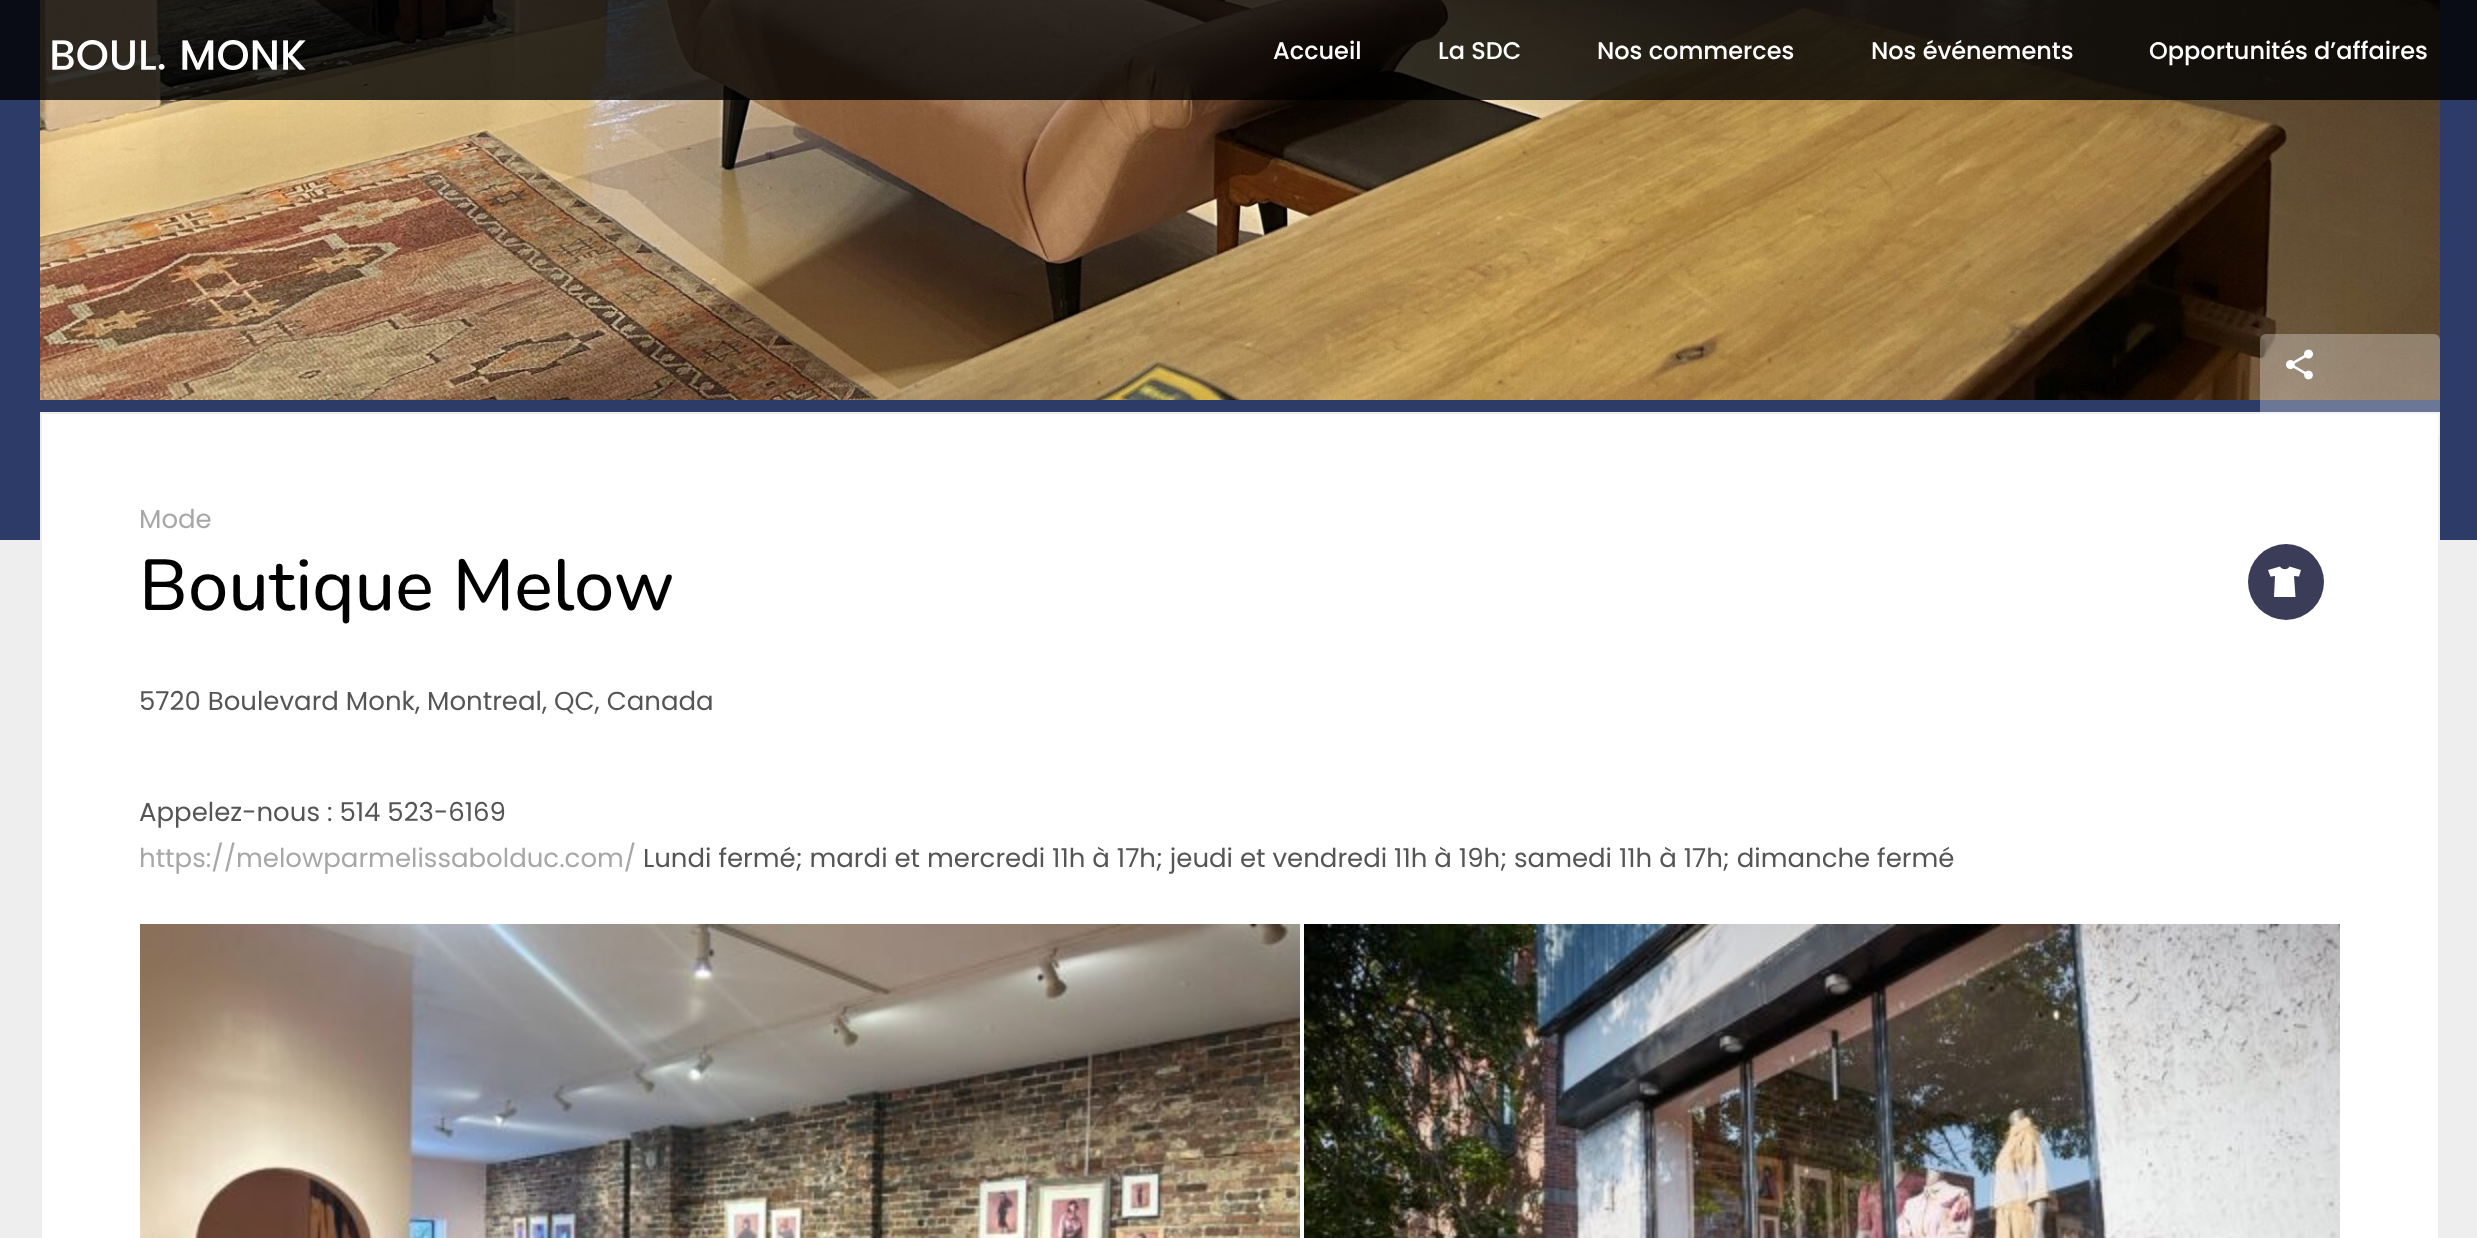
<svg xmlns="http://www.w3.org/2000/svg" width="2477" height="1238">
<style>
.a{font:500 24px Poppins;fill:#fff}
.b{font:26px Poppins;fill:#a7a7a7}
.c{font:500 72px Nunito;fill:#000}
.d{font:26px Poppins;fill:#555}
</style>
<rect width="100%" height="100%" fill="#eee"/>
<path fill="#2d3b68" d="M0 0h2477v540H0z"/>
<image href="2.png" x="40" y="0" width="2400" height="400"/>
<path fill="#000000cc" d="M0 0h2477v100H0z"/>
<image href="1.png" x="52" y="40" width="254" height="30"/>
<path fill="#fff" stroke="#eee" stroke-width="2" d="M41 413h2398v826H41z"/>
<rect fill="#ffffff4d" x="2260" y="334" width="180" height="106" rx="6"/>
<image href="3.png" x="2286" y="349" width="27" height="31"/>
<circle fill="#3b3c58" cx="2286" cy="582" r="38"/>
<path fill="#fff" d="M2301 570l-2 6.5l-5-.5l1.5 21h-21.5l1-21l-4.5 .5l-2.5-6.5l12-3.5c2 3.5 7.5 3.5 9.5 0z"/>
<image href="4.png" x="140" y="924" width="1160" height="314"/>
<image href="5.png" x="1304" y="924" width="1036" height="314"/>
<text class="a" x="1273" y="59">Accueil</text>
<text class="a" x="1438" y="59">La SDC</text>
<text class="a" x="1597" y="59">Nos commerces</text>
<text class="a" x="1871" y="59">Nos événements</text>
<text class="a" x="2149" y="59">Opportunités d’affaires</text>
<text class="b" x="139" y="528">Mode</text>
<text class="c" x="139" y="610">Boutique Melow</text>
<text class="d" x="139" y="710">5720 Boulevard Monk, Montreal, QC, Canada</text>
<text class="d" x="139" y="821">Appelez-nous : 514 523-6169</text>
<text class="b" x="139" y="867">https://melowparmelissabolduc.com/</text>
<text class="d" x="643" y="867">Lundi fermé; mardi et mercredi 11h à 17h; jeudi et vendredi 11h à 19h; samedi 11h à 17h; dimanche fermé</text>
</svg>
